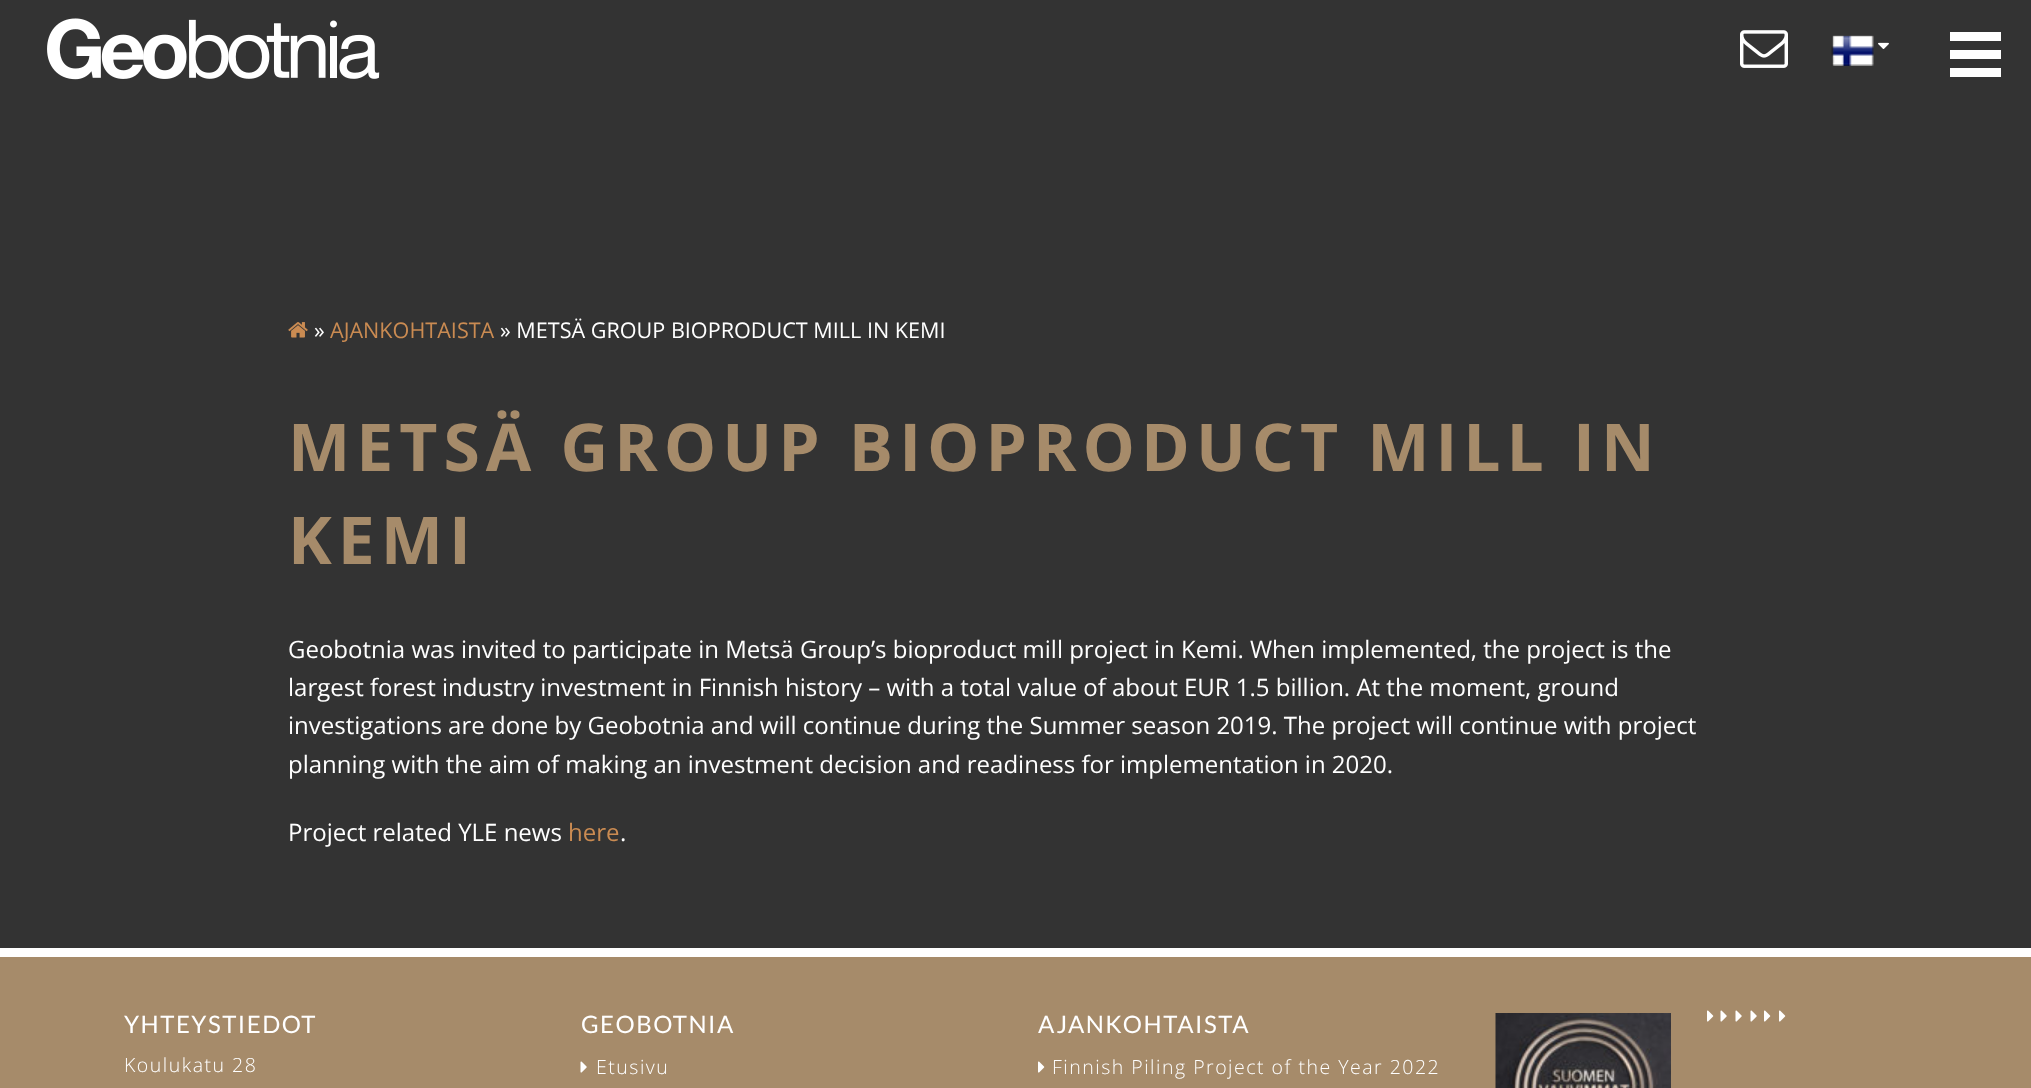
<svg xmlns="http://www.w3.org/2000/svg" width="2031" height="1088">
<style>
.a{font:21.6px Open Sans;fill:#fff}
.b{font:21.6px Open Sans;fill:#ca8b52}
.c{font:bold 66px Open Sans;letter-spacing:6px;fill:#a68b6a}
.d{font:24px Open Sans;fill:#fff}
.e{font:24px Open Sans;fill:#ca8b52}
.f{font:24px Lato;letter-spacing:1.5px;fill:#fff}
.g{font:300 19.5px Open Sans;letter-spacing:1.5px;fill:#fff}
</style>
<rect width="100%" height="100%" fill="#333"/>
<image href="1.png" x="47" y="18" width="333" height="62"/>
<image href="2.png" x="1740" y="30" width="48" height="38"/>
<image href="3.png" x="1831" y="35" width="43" height="31"/>
<image href="4.png" x="1878" y="42" width="11" height="7"/>
<path fill="#fff" d="M1950 68h51v9H1950z"/>
<path fill="#fff" d="M1950 50h51v9H1950z"/>
<path fill="#fff" d="M1950 32h51v9H1950z"/>
<image href="5.png" x="288" y="322" width="20" height="16"/>
<path fill="#a68b6a" d="M0 957h2031v131H0z"/>
<path fill="#fff" d="M0 948h2031v9H0z"/>
<image href="6.png" x="580" y="1061" width="7" height="12"/>
<image href="7.png" x="1038" y="1061" width="7" height="12"/>
<image href="8.png" x="1495" y="1013" width="176" height="75"/>
<image href="7.png" x="1707" y="1010" width="7" height="12"/>
<image href="6.png" x="1720" y="1010" width="7" height="12"/>
<image href="6.png" x="1735" y="1010" width="7" height="12"/>
<image href="6.png" x="1750" y="1010" width="7" height="12"/>
<image href="7.png" x="1764" y="1010" width="7" height="12"/>
<image href="7.png" x="1779" y="1010" width="7" height="12"/>
<text class="a" x="314" y="338">»</text>
<text class="b" x="330" y="338">AJANKOHTAISTA</text>
<text class="a" x="500" y="338">» METSÄ GROUP BIOPRODUCT MILL IN KEMI</text>
<text class="c" x="288" y="471">METSÄ GROUP BIOPRODUCT MILL IN</text>
<text class="c" x="288" y="564">KEMI</text>
<text class="d" x="288" y="658">Geobotnia was invited to participate in Metsä Group’s bioproduct mill project in Kemi. When implemented, the project is the</text>
<text class="d" x="288" y="696">largest forest industry investment in Finnish history – with a total value of about EUR 1.5 billion. At the moment, ground</text>
<text class="d" x="288" y="734">investigations are done by Geobotnia and will continue during the Summer season 2019. The project will continue with project</text>
<text class="d" x="288" y="773">planning with the aim of making an investment decision and readiness for implementation in 2020.</text>
<text class="d" x="288" y="841">Project related YLE news</text>
<text class="e" x="568" y="841">here</text>
<text class="d" x="620" y="841">.</text>
<text class="f" x="124" y="1033">YHTEYSTIEDOT</text>
<text class="g" x="124" y="1072">Koulukatu 28</text>
<text class="f" x="581" y="1033">GEOBOTNIA</text>
<text class="g" x="596" y="1074">Etusivu</text>
<text class="f" x="1038" y="1033">AJANKOHTAISTA</text>
<text class="g" x="1052" y="1074">Finnish Piling Project of the Year 2022</text>
</svg>
